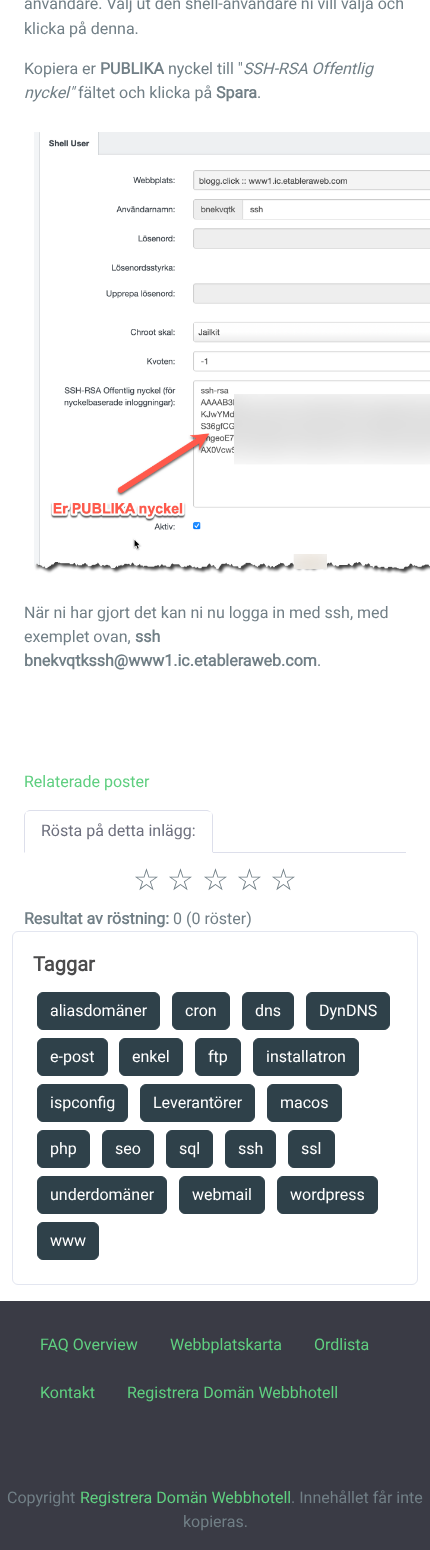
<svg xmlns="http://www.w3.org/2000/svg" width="430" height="1550">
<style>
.a{font:16px Roboto;fill:#717f86}
.b{font:bold 16px Roboto;fill:#717f86}
.c{font:italic 16px Roboto;fill:#717f86}
.d{font:16px Roboto;fill:#5fcf80}
.e{font:16px Roboto;fill:#6e707e}
.f{font:30px DejaVu Sans;fill:#717f86}
.g{font:bold 20px Roboto;fill:#4b4b4c}
.h{font:16px Roboto;fill:#fff}
</style>
<rect width="100%" height="100%" fill="#fff"/>
<image href="1.png" x="34" y="132" width="396" height="442"/>
<path fill="#dddfeb" d="M213 852h193v1H213z"/>
<path fill="#dddfeb" d="M30 810c-2 0-3 1-4 2c1 0 2-1 4-1h177c1 0 3 1 4 1c-1-1-3-2-4-2z"/>
<path fill="#dddfeb" d="M213 853v-37c0-2-1-3-2-4c1 1 1 2 1 4v36z"/>
<path fill="#fff" d="M213 853l-1-1h-187l-1 1z"/>
<path fill="#dddfeb" d="M24 853l1-1v-36c0-2 1-3 1-4c-1 1-2 2-2 4z"/>
<rect fill="none" stroke="#e3e6f0" x="12.5" y="931.5" width="405" height="353" rx="5.5"/>
<rect fill="#2f414a" stroke="#2f414a" x="37.5" y="992.5" width="122" height="37" rx="5.5"/>
<rect fill="#2f414a" stroke="#2f414a" x="172.5" y="992.5" width="57" height="37" rx="5.5"/>
<rect fill="#2f414a" stroke="#2f414a" x="242.5" y="992.5" width="51" height="37" rx="5.5"/>
<rect fill="#2f414a" stroke="#2f414a" x="306.5" y="992.5" width="83" height="37" rx="5.5"/>
<rect fill="#2f414a" stroke="#2f414a" x="37.5" y="1038.5" width="70" height="37" rx="5.5"/>
<rect fill="#2f414a" stroke="#2f414a" x="119.5" y="1038.5" width="63" height="37" rx="5.5"/>
<rect fill="#2f414a" stroke="#2f414a" x="195.5" y="1038.5" width="45" height="37" rx="5.5"/>
<rect fill="#2f414a" stroke="#2f414a" x="253.5" y="1038.5" width="105" height="37" rx="5.5"/>
<rect fill="#2f414a" stroke="#2f414a" x="37.5" y="1084.5" width="90" height="37" rx="5.5"/>
<rect fill="#2f414a" stroke="#2f414a" x="140.5" y="1084.5" width="114" height="37" rx="5.5"/>
<rect fill="#2f414a" stroke="#2f414a" x="267.5" y="1084.5" width="74" height="37" rx="5.5"/>
<rect fill="#2f414a" stroke="#2f414a" x="37.5" y="1130.5" width="52" height="37" rx="5.5"/>
<rect fill="#2f414a" stroke="#2f414a" x="102.5" y="1130.5" width="51" height="37" rx="5.5"/>
<rect fill="#2f414a" stroke="#2f414a" x="166.5" y="1130.5" width="46" height="37" rx="5.5"/>
<rect fill="#2f414a" stroke="#2f414a" x="225.5" y="1130.5" width="50" height="37" rx="5.5"/>
<rect fill="#2f414a" stroke="#2f414a" x="288.5" y="1130.5" width="46" height="37" rx="5.5"/>
<rect fill="#2f414a" stroke="#2f414a" x="37.5" y="1176.5" width="129" height="37" rx="5.5"/>
<rect fill="#2f414a" stroke="#2f414a" x="179.5" y="1176.5" width="85" height="37" rx="5.5"/>
<rect fill="#2f414a" stroke="#2f414a" x="277.5" y="1176.5" width="100" height="37" rx="5.5"/>
<rect fill="#2f414a" stroke="#2f414a" x="37.5" y="1222.5" width="61" height="37" rx="5.5"/>
<path fill="#3a3b45" d="M0 1301h430v249H0z"/>
<text class="a" x="24" y="9">användare. Välj ut den shell-användare ni vill välja och</text>
<text class="a" x="24" y="34">klicka på denna.</text>
<text class="a" x="24" y="74">Kopiera er</text>
<text class="b" x="100" y="74">PUBLIKA</text>
<text class="a" x="168" y="74">nyckel till "</text>
<text class="c" x="243" y="74">SSH-RSA Offentlig</text>
<text class="c" x="24" y="98">nyckel"</text>
<text class="a" x="78" y="98">fältet och klicka på</text>
<text class="b" x="216" y="98">Spara</text>
<text class="a" x="257" y="98">.</text>
<text class="a" x="24" y="618">När ni har gjort det kan ni nu logga in med ssh, med</text>
<text class="a" x="24" y="642">exemplet ovan,</text>
<text class="b" x="135" y="642">ssh</text>
<text class="b" x="24" y="666">bnekvqtkssh@www1.ic.etableraweb.com</text>
<text class="a" x="317" y="666">.</text>
<text class="d" x="24" y="787">Relaterade poster</text>
<text class="e" x="41" y="836">Rösta på detta inlägg:</text>
<text class="f" x="133" y="890">☆</text>
<text class="f" x="167" y="890">☆</text>
<text class="f" x="202" y="890">☆</text>
<text class="f" x="236" y="890">☆</text>
<text class="f" x="270" y="890">☆</text>
<text class="b" x="24" y="924">Resultat av röstning:</text>
<text class="a" x="173" y="924">0 (0 röster)</text>
<text class="g" x="33" y="971">Taggar</text>
<text class="h" x="50" y="1016">aliasdomäner</text>
<text class="h" x="185" y="1016">cron</text>
<text class="h" x="255" y="1016">dns</text>
<text class="h" x="319" y="1016">DynDNS</text>
<text class="h" x="50" y="1062">e-post</text>
<text class="h" x="132" y="1062">enkel</text>
<text class="h" x="208" y="1062">ftp</text>
<text class="h" x="266" y="1062">installatron</text>
<text class="h" x="50" y="1108">ispconfig</text>
<text class="h" x="153" y="1108">Leverantörer</text>
<text class="h" x="280" y="1108">macos</text>
<text class="h" x="50" y="1154">php</text>
<text class="h" x="115" y="1154">seo</text>
<text class="h" x="179" y="1154">sql</text>
<text class="h" x="238" y="1154">ssh</text>
<text class="h" x="301" y="1154">ssl</text>
<text class="h" x="50" y="1200">underdomäner</text>
<text class="h" x="192" y="1200">webmail</text>
<text class="h" x="290" y="1200">wordpress</text>
<text class="h" x="50" y="1246">www</text>
<text class="d" x="40" y="1350">FAQ Overview</text>
<text class="d" x="170" y="1350">Webbplatskarta</text>
<text class="d" x="314" y="1350">Ordlista</text>
<text class="d" x="40" y="1398">Kontakt</text>
<text class="d" x="127" y="1398">Registrera Domän Webbhotell</text>
<text class="a" x="7" y="1503">Copyright</text>
<text class="d" x="80" y="1503">Registrera Domän Webbhotell</text>
<text class="a" x="291" y="1503">. Innehållet får inte</text>
<text class="a" x="183" y="1527">kopieras.</text>
</svg>
